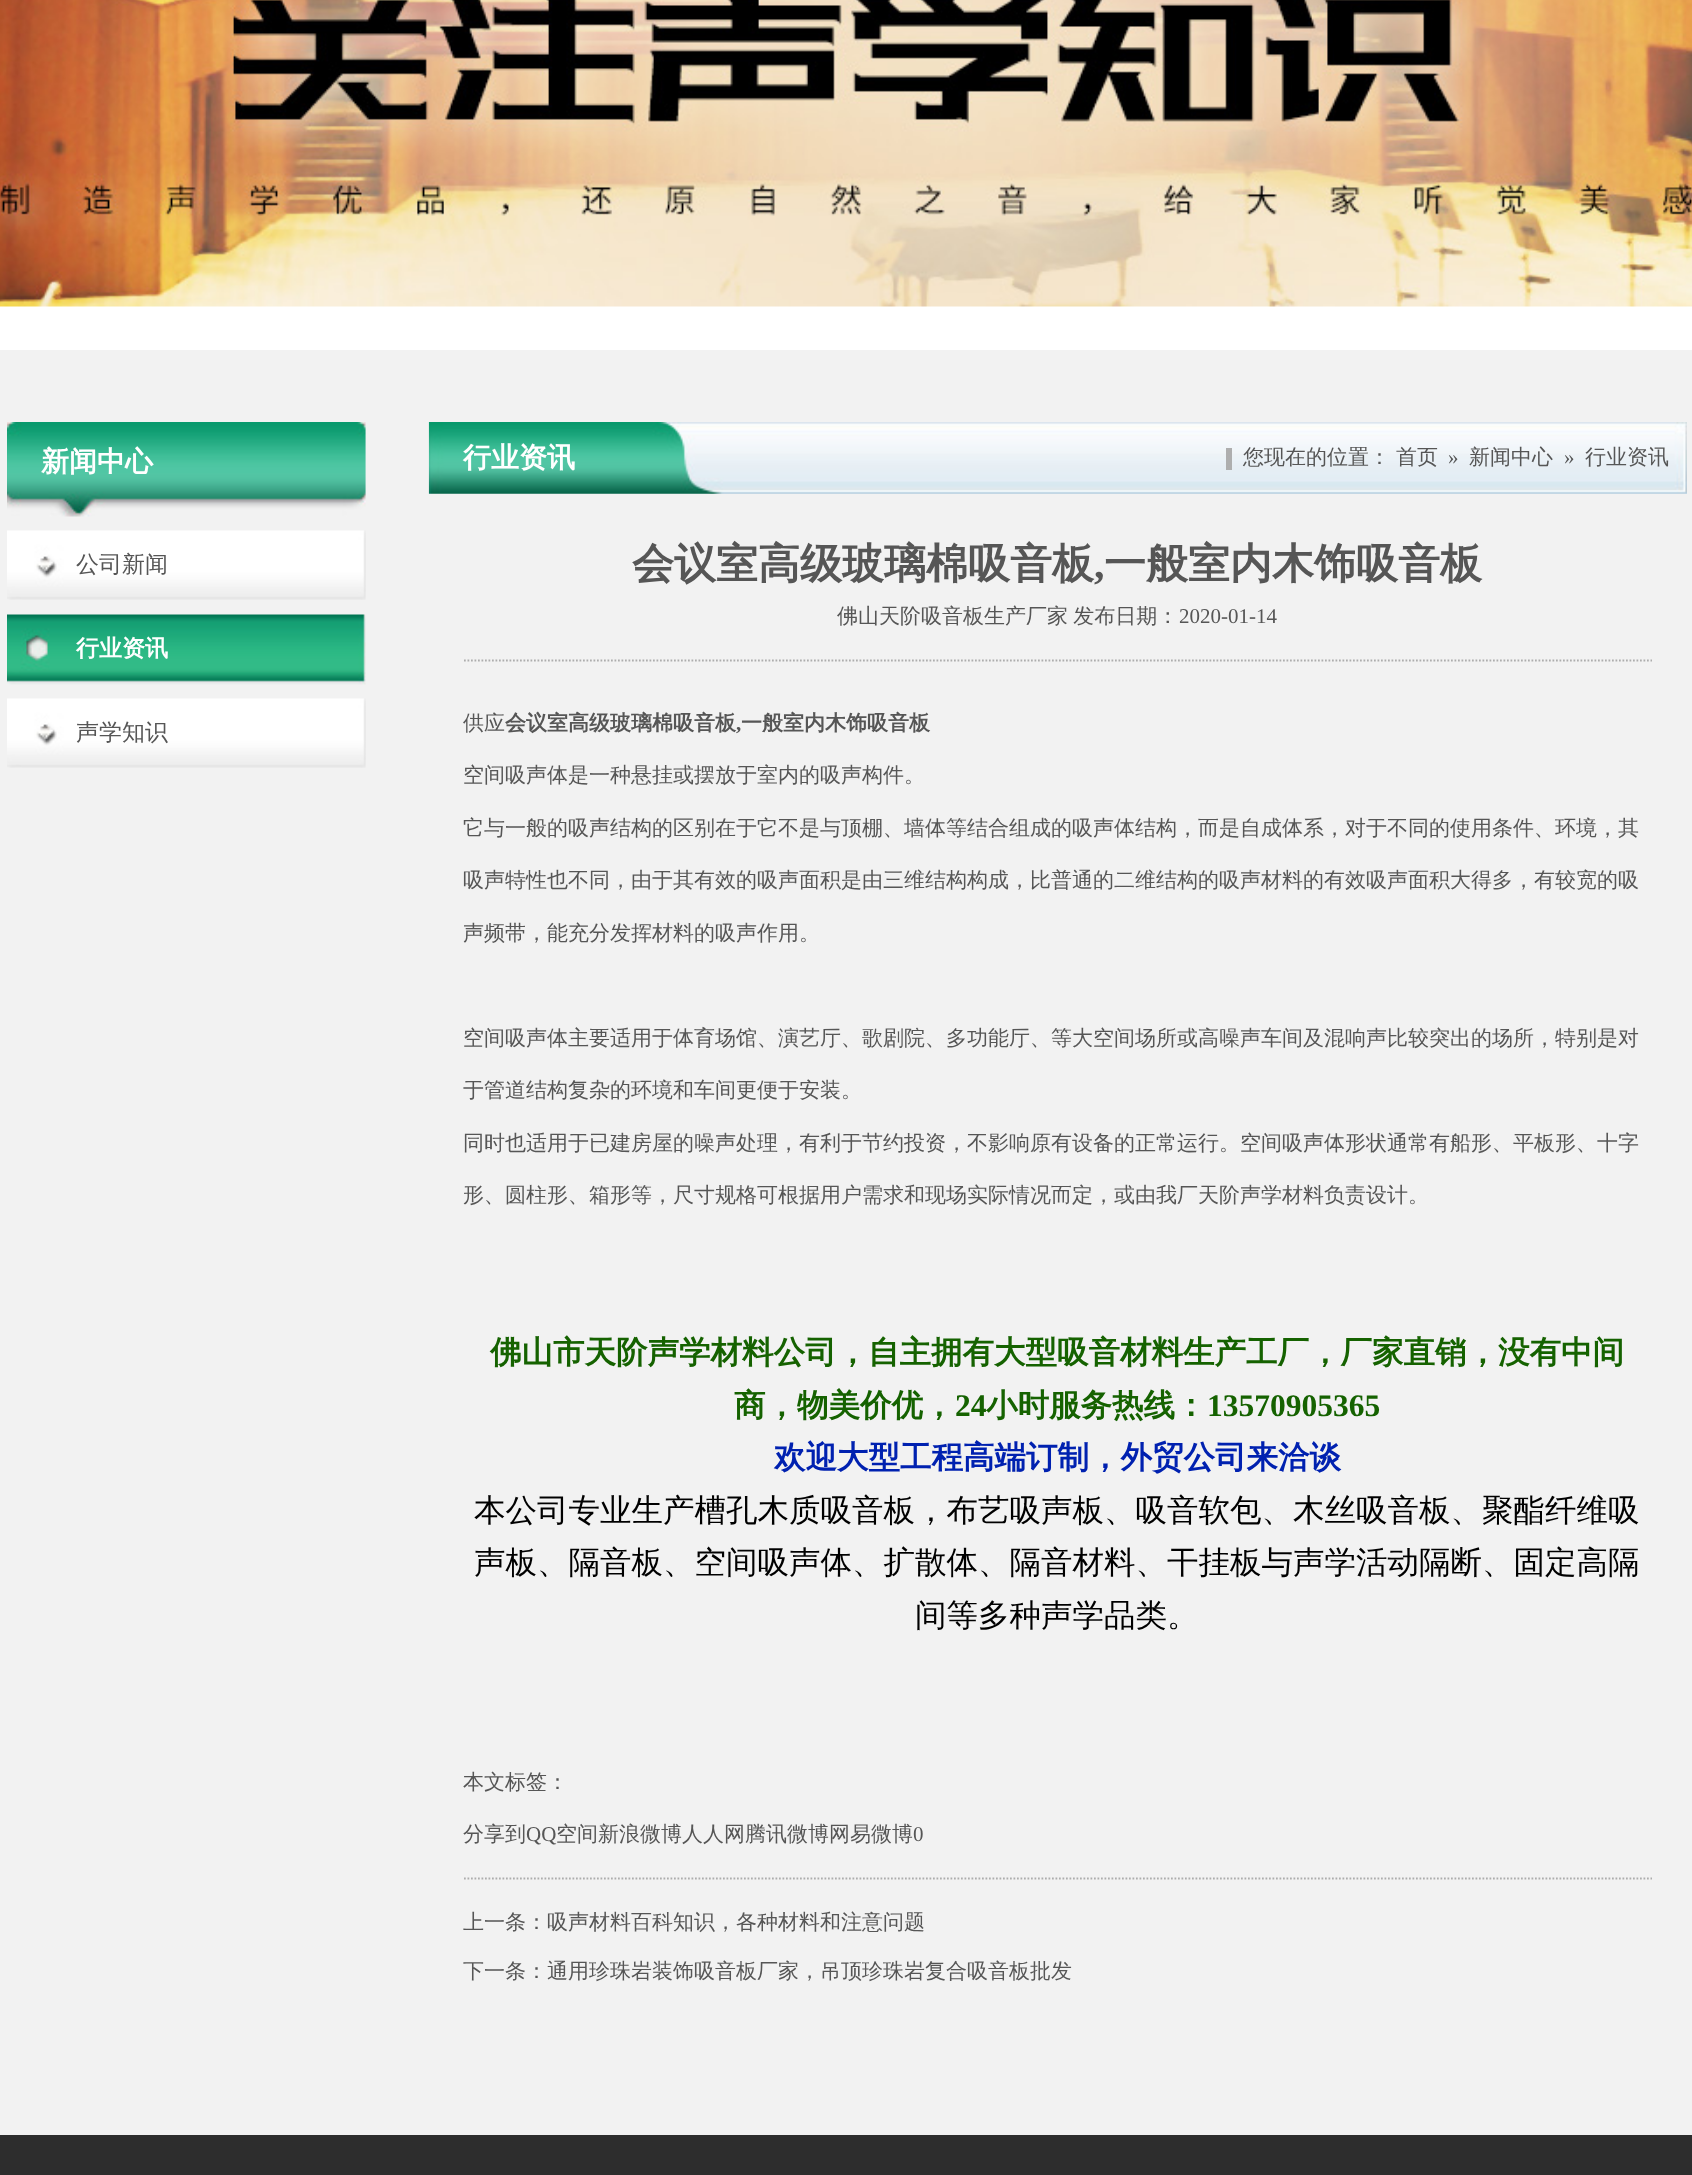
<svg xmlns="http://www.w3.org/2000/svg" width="1692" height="2175">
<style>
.a{font:bold 28px WenQuanYi Zen Hei;fill:#fff}
.b{font:500 23px WenQuanYi Zen Hei;fill:#565656}
.c{font:bold 23px WenQuanYi Zen Hei;fill:#fff}
.d{font:500 21px WenQuanYi Zen Hei;fill:#565656}
.e{font:21px Liberation Serif;fill:#565656}
.f{font:bold 42px WenQuanYi Zen Hei;fill:#565656}
.g{font:bold 42px Liberation Serif;fill:#565656}
.h{font:bold 21px WenQuanYi Zen Hei;fill:#565656}
.i{font:bold 21px Liberation Serif;fill:#565656}
.j{font:bold 31.5px WenQuanYi Zen Hei;fill:#156200}
.k{font:bold 31.5px Liberation Serif;fill:#156200}
.l{font:bold 31.5px WenQuanYi Zen Hei;fill:#0021b0}
.m{font:500 31.5px WenQuanYi Zen Hei;fill:#000}
</style>
<rect width="100%" height="100%" fill="#fff"/>
<image href="1.png" x="0" y="0" width="1692" height="307"/>
<path fill="#f2f2f2" d="M0 350h1692v1785H0z"/>
<image href="2.png" x="7" y="422" width="359" height="95"/>
<image href="3.png" x="7" y="530" width="359" height="70"/>
<image href="4.png" x="7" y="614" width="359" height="71"/>
<image href="3.png" x="7" y="698" width="359" height="70"/>
<image href="5.png" x="428" y="422" width="1259" height="72"/>
<path fill="#aeaeae" d="M1226 448h6v22H1226z"/>
<path fill="none" stroke="#adadad" stroke-width="1.8" stroke-dasharray="1.75 1.75" d="M464 660.5h1188"/>
<path fill="none" stroke="#adadad" stroke-width="1.8" stroke-dasharray="1.75 1.75" d="M464 1878.5h1188"/>
<path fill="#2d2d2d" d="M0 2135h1692v40H0z"/>
<text class="a" x="41" y="471">新闻中心</text>
<text class="b" x="76" y="572">公司新闻</text>
<text class="c" x="76" y="656">行业资讯</text>
<text class="b" x="76" y="740">声学知识</text>
<text class="a" x="463" y="467">行业资讯</text>
<text class="d" x="1243" y="464">您现在的位置：</text>
<text class="d" x="1396" y="464">首页</text>
<text class="e" x="1448" y="464">»</text>
<text class="d" x="1469" y="464">新闻中心</text>
<text class="e" x="1564" y="464">»</text>
<text class="d" x="1585" y="464">行业资讯</text>
<text class="f" x="632" y="578">会议室高级玻璃棉吸音板</text>
<text class="g" x="1094" y="578">,</text>
<text class="f" x="1104" y="578">一般室内木饰吸音板</text>
<text class="d" x="837" y="623" word-spacing="-1">佛山天阶吸音板生产厂家 发布日期：</text>
<text class="e" x="1179" y="623">2020-01-14</text>
<text class="d" x="463" y="730">供应</text>
<text class="h" x="505" y="730">会议室高级玻璃棉吸音板</text>
<text class="i" x="736" y="730">,</text>
<text class="h" x="741" y="730">一般室内木饰吸音板</text>
<text class="d" x="463" y="782">空间吸声体是一种悬挂或摆放于室内的吸声构件。</text>
<text class="d" x="463" y="835">它与一般的吸声结构的区别在于它不是与顶棚、墙体等结合组成的吸声体结构，而是自成体系，对于不同的使用条件、环境，其</text>
<text class="d" x="463" y="887">吸声特性也不同，由于其有效的吸声面积是由三维结构构成，比普通的二维结构的吸声材料的有效吸声面积大得多，有较宽的吸</text>
<text class="d" x="463" y="940">声频带，能充分发挥材料的吸声作用。</text>
<text class="d" x="463" y="1045">空间吸声体主要适用于体育场馆、演艺厅、歌剧院、多功能厅、等大空间场所或高噪声车间及混响声比较突出的场所，特别是对</text>
<text class="d" x="463" y="1097">于管道结构复杂的环境和车间更便于安装。</text>
<text class="d" x="463" y="1150">同时也适用于已建房屋的噪声处理，有利于节约投资，不影响原有设备的正常运行。空间吸声体形状通常有船形、平板形、十字</text>
<text class="d" x="463" y="1202">形、圆柱形、箱形等，尺寸规格可根据用户需求和现场实际情况而定，或由我厂天阶声学材料负责设计。</text>
<text class="j" x="490" y="1363">佛山市天阶声学材料公司，自主拥有大型吸音材料生产工厂，厂家直销，没有中间</text>
<text class="j" x="734" y="1416">商，物美价优，</text>
<text class="k" x="955" y="1416">24</text>
<text class="j" x="986" y="1416">小时服务热线：</text>
<text class="k" x="1207" y="1416">13570905365</text>
<text class="l" x="774" y="1468">欢迎大型工程高端订制，外贸公司来洽谈</text>
<text class="m" x="474" y="1521">本公司专业生产槽孔木质吸音板，布艺吸声板、吸音软包、木丝吸音板、聚酯纤维吸</text>
<text class="m" x="474" y="1573">声板、隔音板、空间吸声体、扩散体、隔音材料、干挂板与声学活动隔断、固定高隔</text>
<text class="m" x="915" y="1626">间等多种声学品类。</text>
<text class="d" x="463" y="1789">本文标签：</text>
<text class="d" x="463" y="1841">分享到</text>
<text class="e" x="526" y="1841">QQ</text>
<text class="d" x="556" y="1841">空间新浪微博人人网腾讯微博网易微博</text>
<text class="e" x="913" y="1841">0</text>
<text class="d" x="463" y="1929">上一条：吸声材料百科知识，各种材料和注意问题</text>
<text class="d" x="463" y="1978">下一条：通用珍珠岩装饰吸音板厂家，吊顶珍珠岩复合吸音板批发</text>
</svg>
